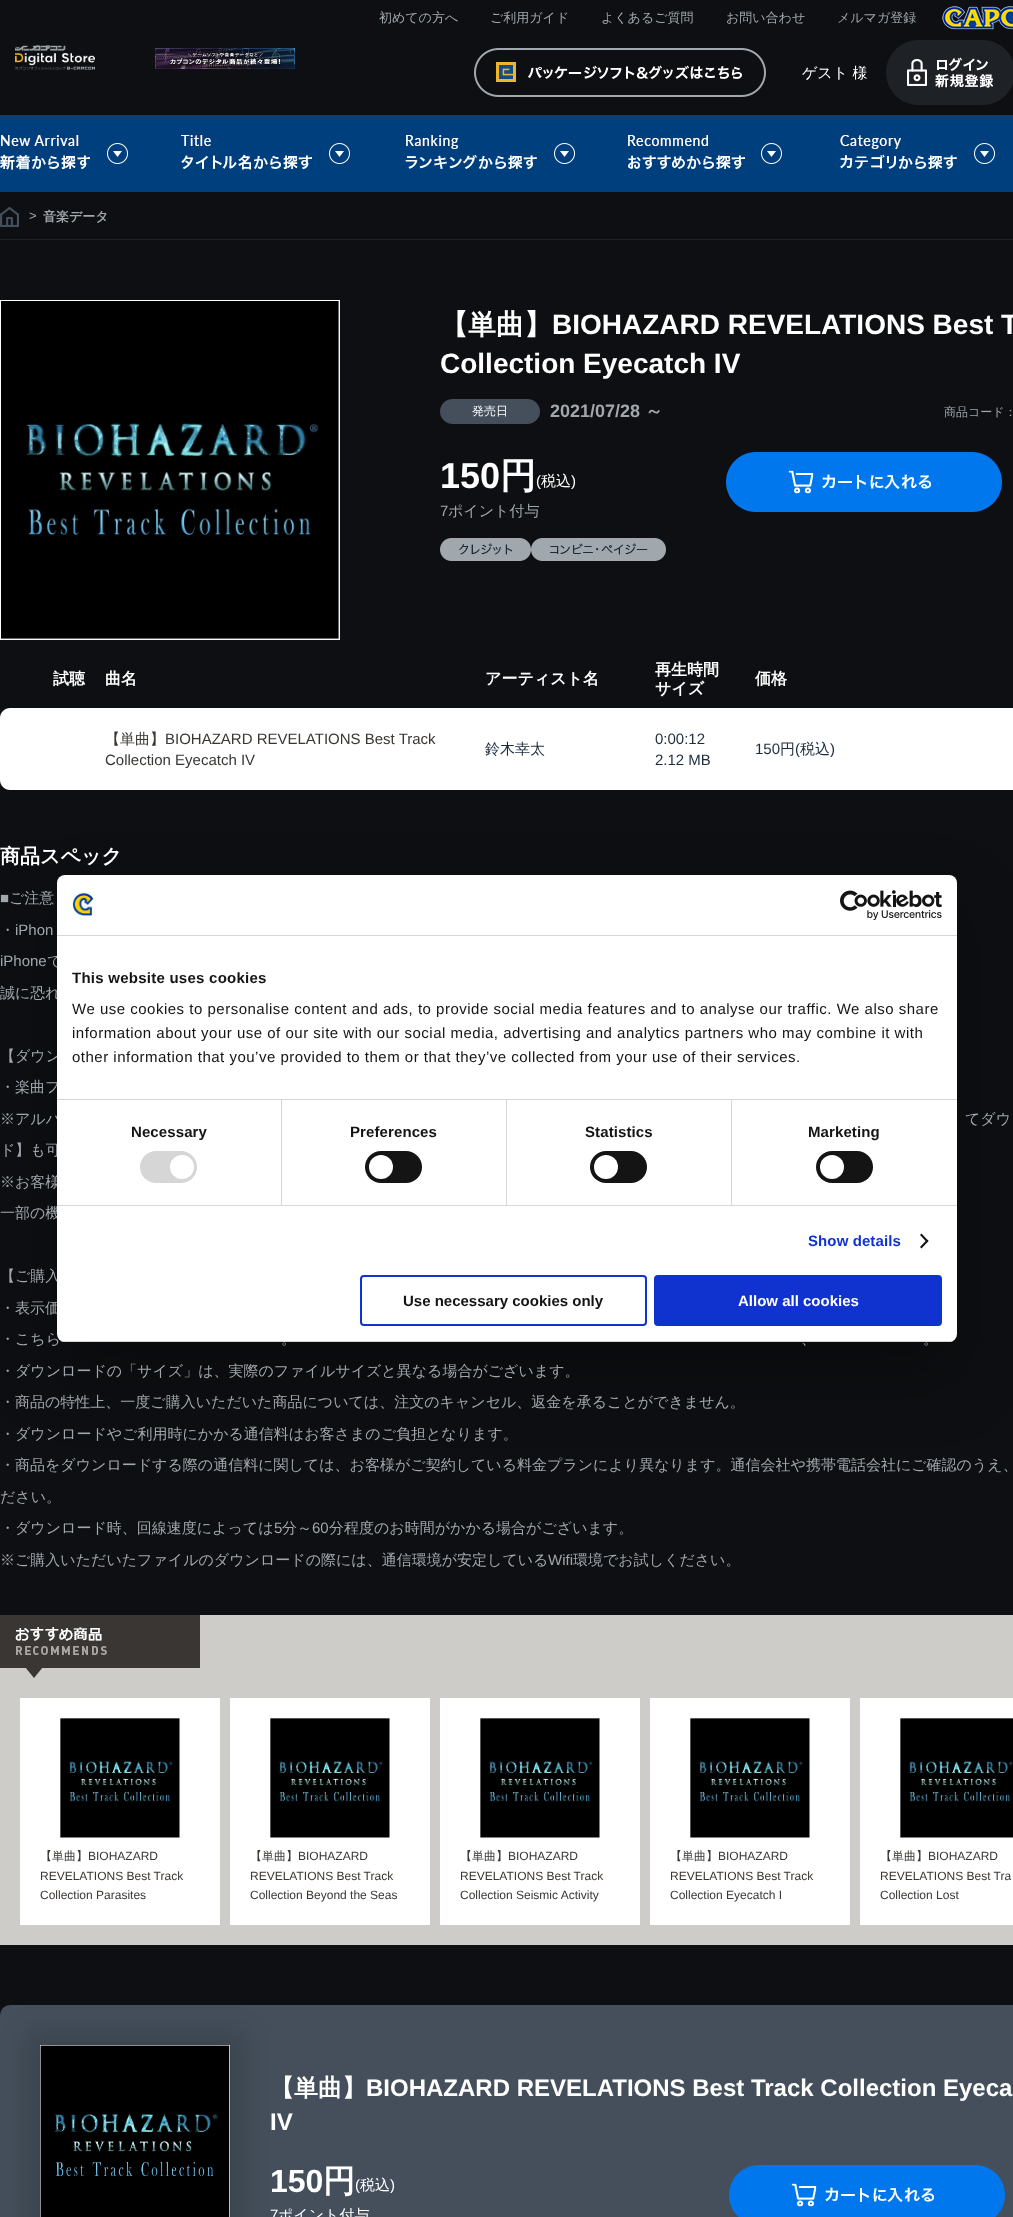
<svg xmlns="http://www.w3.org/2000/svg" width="1013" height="2217">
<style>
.a{font:500 13px WenQuanYi Zen Hei;fill:#a0a7ad}
.b{font:500 15px WenQuanYi Zen Hei;fill:#fff}
.c{font:13px Liberation Sans;fill:#a0a7ad}
.d{font:bold 13px WenQuanYi Zen Hei;fill:#a0a7ad}
.e{font:bold 28px WenQuanYi Zen Hei;fill:#fff}
.f{font:bold 28px Liberation Sans;fill:#fff}
.g{font:500 12px WenQuanYi Zen Hei;fill:#fff}
.h{font:bold 18px Liberation Sans;fill:#a0a7ad}
.i{font:bold 18px WenQuanYi Zen Hei;fill:#a0a7ad}
.j{font:500 12px WenQuanYi Zen Hei;fill:#a0a7ad}
.k{font:bold 36px Liberation Sans;fill:#fff}
.l{font:bold 36px WenQuanYi Zen Hei;fill:#fff}
.m{font:15px Liberation Sans;fill:#fff}
.n{font:15px Liberation Sans;fill:#a0a7ad}
.o{font:500 15px WenQuanYi Zen Hei;fill:#a0a7ad}
.p{font:bold 16px WenQuanYi Zen Hei;fill:#fff}
.q{font:500 15px WenQuanYi Zen Hei;fill:#393633}
.r{font:15px Liberation Sans;fill:#393633}
.s{font:500 15px WenQuanYi Zen Hei;fill:#1c2c3d}
.t{font:15px Liberation Sans;fill:#1c2c3d}
.u{font:bold 20px WenQuanYi Zen Hei;fill:#fff}
.v{font:500 12px WenQuanYi Zen Hei;fill:#393633}
.w{font:12px Liberation Sans;fill:#393633}
.x{font:bold 24px WenQuanYi Zen Hei;fill:#fff}
.y{font:bold 24px Liberation Sans;fill:#fff}
.z{font:bold 32px Liberation Sans;fill:#fff}
.a1{font:bold 32px WenQuanYi Zen Hei;fill:#fff}
.b1{font:bold 15px Liberation Sans;letter-spacing:0.25px;fill:#141414}
.c1{font:15px Liberation Sans;letter-spacing:0.5px;fill:#141414}
.d1{font:bold 15px Liberation Sans;letter-spacing:0.1px;fill:#141414}
.e1{font:bold 15px Liberation Sans;letter-spacing:0.1px;fill:#1032cf}
.f1{font:bold 15px Liberation Sans;fill:#141414}
.g1{font:bold 15px Liberation Sans;fill:#fff}
</style>
<defs>
<clipPath id="clip1"><rect x="57" y="875" width="900" height="467" rx="8"/></clipPath>
</defs>
<rect width="100%" height="100%" fill="#0d0f12"/>
<image href="1.png" x="942" y="6" width="71" height="24"/>
<image href="2.png" x="15" y="45" width="80" height="25"/>
<image href="3.png" x="155" y="48" width="140" height="21"/>
<image href="4.png" x="474" y="48" width="292" height="49"/>
<image href="5.png" x="886" y="40" width="127" height="65"/>
<path fill="#003f7d" d="M0 115h1013v77H0z"/>
<image href="6.png" x="0" y="135" width="128" height="35"/>
<image href="7.png" x="181" y="135" width="169" height="35"/>
<image href="8.png" x="405" y="135" width="170" height="35"/>
<image href="9.png" x="628" y="135" width="154" height="35"/>
<image href="10.png" x="840" y="135" width="155" height="35"/>
<path fill="#1e2125" d="M0 239h1013v1H0z"/>
<image href="11.png" x="0" y="207" width="19" height="20"/>
<image href="12.png" x="0" y="300" width="340" height="340"/>
<rect fill="#444f5b" x="440" y="399" width="100" height="25" rx="12.5"/>
<image href="13.png" x="440" y="538" width="91" height="23"/>
<image href="14.png" x="531" y="538" width="135" height="23"/>
<image href="15.png" x="726" y="452" width="276" height="60"/>
<path fill="#fff" d="M10 708h33v82h-33c-5.5 0-10-4.5-10-10v-62c0-5.5 4.5-10 10-10z"/>
<path fill="#fff" d="M43 708h970v82H43z"/>
<path fill="#ceccc8" d="M0 1615h1013v330H0z"/>
<image href="16.png" x="0" y="1615" width="200" height="63"/>
<path fill="#fff" d="M20 1698h200v227H20z"/>
<image href="17.png" x="60" y="1718" width="120" height="120"/>
<path fill="#fff" d="M230 1698h200v227H230z"/>
<image href="18.png" x="270" y="1718" width="120" height="120"/>
<path fill="#fff" d="M440 1698h200v227H440z"/>
<image href="18.png" x="480" y="1718" width="120" height="120"/>
<path fill="#fff" d="M650 1698h200v227H650z"/>
<image href="17.png" x="690" y="1718" width="120" height="120"/>
<path fill="#fff" d="M860 1698h153v227H860z"/>
<image href="19.png" x="900" y="1718" width="113" height="120"/>
<rect fill="#444f5b" y="2005" width="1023" height="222" rx="10"/>
<path fill="#00000021" filter="blur(13.5px)" d="M26 2031h218v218H26z"/>
<image href="20.png" x="40" y="2045" width="190" height="172"/>
<image href="21.png" x="729" y="2165" width="276" height="52"/>
<rect fill="#0000004d" filter="blur(34px)" x="57" y="907" width="900" height="467" rx="8"/>
<text class="a" x="379" y="22">初めての方へ</text>
<text class="a" x="490" y="22">ご利用ガイド</text>
<text class="a" x="601" y="22">よくあるご質問</text>
<text class="a" x="726" y="22">お問い合わせ</text>
<text class="a" x="837" y="22">メルマガ登録</text>
<text class="b" x="802" y="78">ゲスト 様</text>
<text class="c" x="29" y="220">&gt;</text>
<text class="d" x="43" y="221">音楽データ</text>
<text class="e" x="440" y="334">【単曲】</text>
<text class="f" x="552" y="334">BIOHAZARD REVELATIONS Best T</text>
<text class="f" x="440" y="373">Collection Eyecatch IV</text>
<text class="g" x="472" y="415">発売日</text>
<text class="h" x="550" y="417">2021/07/28</text>
<text class="i" x="645" y="417">～</text>
<text class="j" x="944" y="416">商品コード：</text>
<text class="k" x="440" y="488">150</text>
<text class="l" x="500" y="488">円</text>
<text class="m" x="536" y="486">(</text>
<text class="b" x="541" y="486">税込</text>
<text class="m" x="571" y="486">)</text>
<text class="n" x="440" y="516">7</text>
<text class="o" x="448" y="516">ポイント付与</text>
<text class="p" x="53" y="684">試聴</text>
<text class="p" x="105" y="684">曲名</text>
<text class="p" x="485" y="684">アーティスト名</text>
<text class="p" x="655" y="675">再生時間</text>
<text class="p" x="655" y="694">サイズ</text>
<text class="p" x="755" y="684">価格</text>
<text class="q" x="105" y="744">【単曲】</text>
<text class="r" x="165" y="744">BIOHAZARD REVELATIONS Best Track</text>
<text class="r" x="105" y="765">Collection Eyecatch IV</text>
<text class="s" x="485" y="754">鈴木幸太</text>
<text class="t" x="655" y="744">0:00:12</text>
<text class="t" x="655" y="765">2.12 MB</text>
<text class="t" x="755" y="754">150</text>
<text class="s" x="780" y="754">円</text>
<text class="t" x="795" y="754">(</text>
<text class="s" x="800" y="754">税込</text>
<text class="t" x="830" y="754">)</text>
<text class="u" x="0" y="863">商品スペック</text>
<text class="n" x="0" y="903">■</text>
<text class="o" x="9" y="903">ご注意</text>
<text class="o" x="0" y="935">・</text>
<text class="n" x="15" y="935">iPhon</text>
<text class="n" x="0" y="966">iPhone</text>
<text class="o" x="47" y="966">で</text>
<text class="o" x="0" y="998">誠に恐れ</text>
<text class="o" x="0" y="1061">【ダウン</text>
<text class="o" x="0" y="1092">・楽曲フ</text>
<text class="o" x="0" y="1124">※アルバ</text>
<text class="o" x="965" y="1124">てダウ</text>
<text class="o" x="0" y="1155">ド】も可</text>
<text class="o" x="0" y="1187">※お客様</text>
<text class="o" x="0" y="1218">一部の機</text>
<text class="o" x="0" y="1281">【ご購入</text>
<text class="o" x="0" y="1313">・表示価</text>
<text class="o" x="0" y="1344">・こちら</text>
<text class="o" x="281" y="1344">。</text>
<text class="o" x="801" y="1344">、</text>
<text class="o" x="923" y="1344">。</text>
<text class="o" x="0" y="1376">・ダウンロードの「サイズ」は、実際のファイルサイズと異なる場合がございます。</text>
<text class="o" x="0" y="1407">・商品の特性上、一度ご購入いただいた商品については、注文のキャンセル、返金を承ることができません。</text>
<text class="o" x="0" y="1439">・ダウンロードやご利用時にかかる通信料はお客さまのご負担となります。</text>
<text class="o" x="0" y="1470">・商品をダウンロードする際の通信料に関しては、お客様がご契約している料金プランにより異なります。通信会社や携帯電話会社にご確認のうえ、</text>
<text class="o" x="0" y="1502">ださい。</text>
<text class="o" x="0" y="1533">・ダウンロード時、回線速度によっては</text>
<text class="n" x="274" y="1533">5</text>
<text class="o" x="282" y="1533">分～</text>
<text class="n" x="312" y="1533">60</text>
<text class="o" x="329" y="1533">分程度のお時間がかかる場合がございます。</text>
<text class="o" x="0" y="1565">※ご購入いただいたファイルのダウンロードの際には、通信環境が安定している</text>
<text class="n" x="548" y="1565">Wifi</text>
<text class="o" x="573" y="1565">環境でお試しください。</text>
<text class="v" x="40" y="1860">【単曲】</text>
<text class="w" x="88" y="1860">BIOHAZARD</text>
<text class="w" x="40" y="1880">REVELATIONS Best Track</text>
<text class="w" x="40" y="1899">Collection Parasites</text>
<text class="v" x="250" y="1860">【単曲】</text>
<text class="w" x="298" y="1860">BIOHAZARD</text>
<text class="w" x="250" y="1880">REVELATIONS Best Track</text>
<text class="w" x="250" y="1899">Collection Beyond the Seas</text>
<text class="v" x="460" y="1860">【単曲】</text>
<text class="w" x="508" y="1860">BIOHAZARD</text>
<text class="w" x="460" y="1880">REVELATIONS Best Track</text>
<text class="w" x="460" y="1899">Collection Seismic Activity</text>
<text class="v" x="670" y="1860">【単曲】</text>
<text class="w" x="718" y="1860">BIOHAZARD</text>
<text class="w" x="670" y="1880">REVELATIONS Best Track</text>
<text class="w" x="670" y="1899">Collection Eyecatch I</text>
<text class="v" x="880" y="1860">【単曲】</text>
<text class="w" x="928" y="1860">BIOHAZARD</text>
<text class="w" x="880" y="1880">REVELATIONS Best Tra</text>
<text class="w" x="880" y="1899">Collection Lost</text>
<text class="x" x="270" y="2096">【単曲】</text>
<text class="y" x="366" y="2096">BIOHAZARD REVELATIONS Best Track Collection Eyeca</text>
<text class="y" x="270" y="2130">IV</text>
<text class="z" x="270" y="2192">150</text>
<text class="a1" x="323" y="2192">円</text>
<text class="m" x="355" y="2190">(</text>
<text class="b" x="360" y="2190">税込</text>
<text class="m" x="390" y="2190">)</text>
<text class="m" x="270" y="2220">7</text>
<text class="b" x="278" y="2220">ポイント付与</text>
<rect fill="#fff" x="57" y="875" width="900" height="467" rx="8"/>
<path fill="#d6d6d6" d="M57 935h900v1H57z"/>
<image href="22.png" x="72" y="893" width="22" height="23"/>
<image href="23.png" x="840" y="890" width="102" height="30"/>
<path fill="#d6d6d6" d="M57 1099h900v1H57z"/>
<text class="b1" x="72" y="983">This website uses cookies</text>
<text class="c1" x="72" y="1014">We use cookies to personalise content and ads, to provide social media features and to analyse our traffic. We also share</text>
<text class="c1" x="72" y="1038">information about your use of our site with our social media, advertising and analytics partners who may combine it with</text>
<text class="c1" x="72" y="1062">other information that you’ve provided to them or that they’ve collected from your use of their services.</text>
<path fill="#d6d6d6" d="M57 1205h900v1H57z"/>
<path fill="#d6d6d6" d="M281 1100h1v105H281z"/>
<text class="d1" x="131" y="1137">Necessary</text>
<rect fill="#d6d6d6" x="140" y="1151" width="57" height="32" rx="16"/>
<circle fill="#fff" cx="182" cy="1167" r="12"/>
<path fill="#d6d6d6" d="M506 1100h1v105H506z"/>
<text class="d1" x="350" y="1137">Preferences</text>
<rect fill="#141414" x="365" y="1151" width="57" height="32" rx="16"/>
<circle fill="#fff" cx="381" cy="1167" r="12"/>
<path fill="#d6d6d6" d="M731 1100h1v105H731z"/>
<text class="d1" x="585" y="1137">Statistics</text>
<rect fill="#141414" x="590" y="1151" width="57" height="32" rx="16"/>
<circle fill="#fff" cx="606" cy="1167" r="12"/>
<text class="d1" x="808" y="1137">Marketing</text>
<rect fill="#141414" x="816" y="1151" width="57" height="32" rx="16"/>
<circle fill="#fff" cx="832" cy="1167" r="12"/>
<text class="e1" x="808" y="1246">Show details</text>
<path fill="#141414" d="M921.5 1233.5l7 7.5l-1.5 1.5l-7-7.5z"/>
<path fill="#141414" d="M927 1239.5l1.5 1.5l-7 7.5l-1.5-1.5z"/>
<g clip-path="url(#clip1)">
<path fill="#d6d6d6" d="M57 1341h900v1H57z"/>
</g>
<rect fill="none" stroke="#1032cf" stroke-width="2" x="361" y="1276" width="285" height="49" rx="3"/>
<text class="f1" x="403" y="1306">Use necessary cookies only</text>
<rect fill="#1032cf" stroke="#1032cf" stroke-width="2" x="655" y="1276" width="286" height="49" rx="3"/>
<text class="g1" x="738" y="1306">Allow all cookies</text>
</svg>
